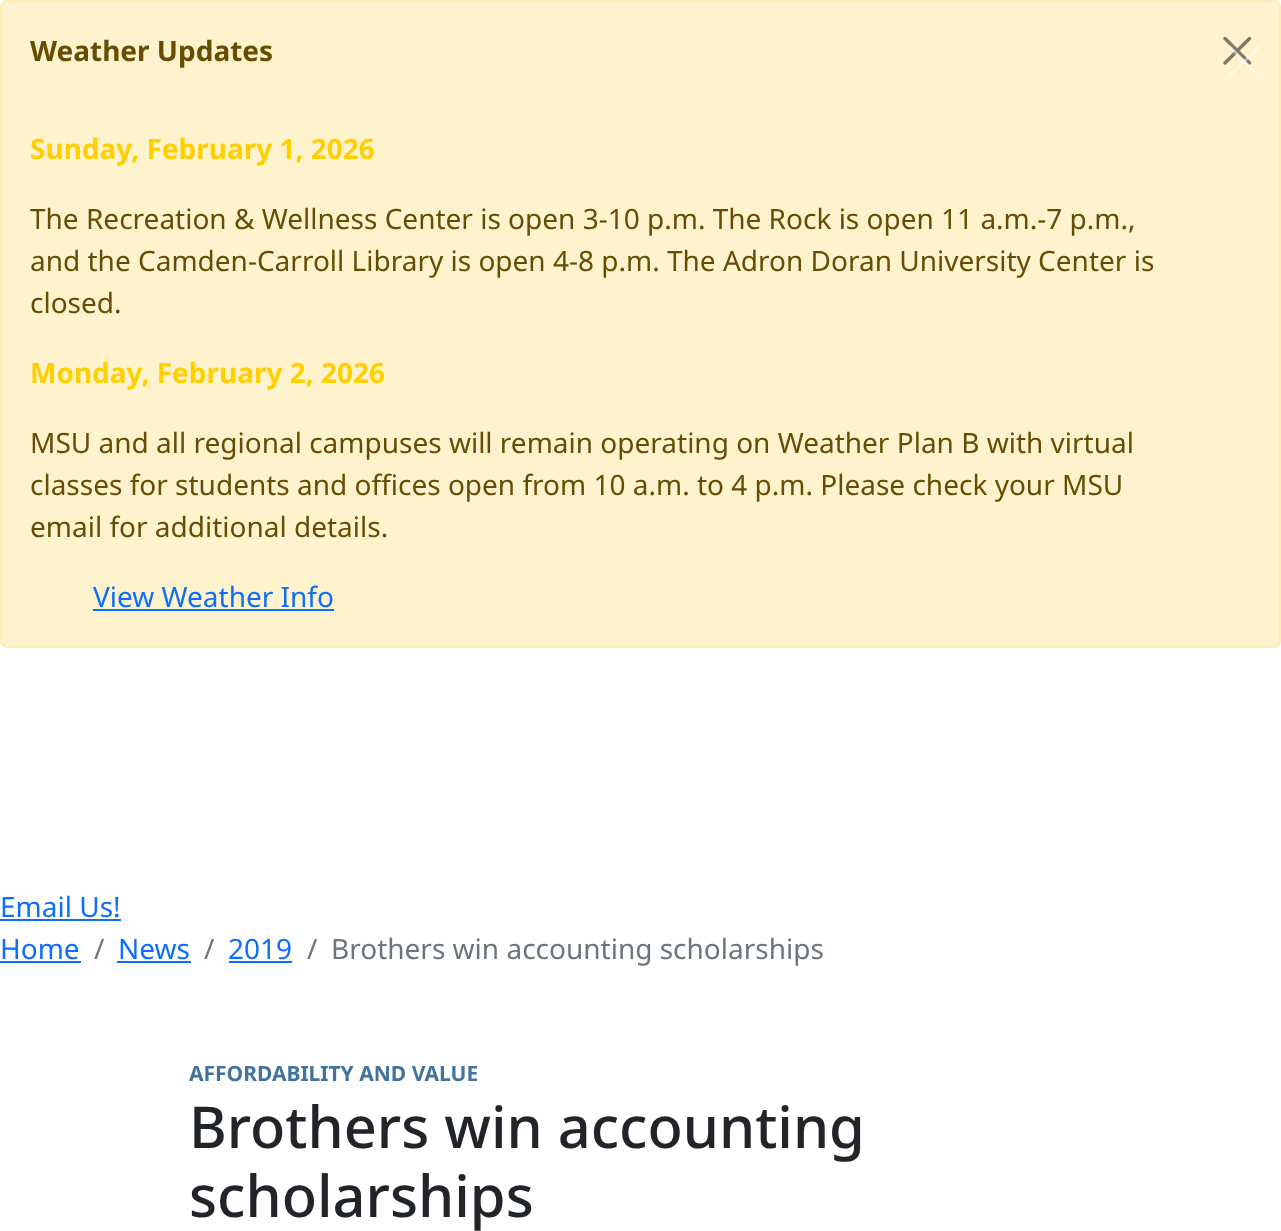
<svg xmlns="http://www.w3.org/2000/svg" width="1281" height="1231">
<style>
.a{font:bold 28px Noto Sans;fill:#664d03}
.b{font:bold 28px Noto Sans;fill:#ffcf00}
.c{font:28px Noto Sans;fill:#664d03}
.d{font:28px Noto Sans;fill:#0d6efd}
.e{font:28px Noto Sans;fill:#6c757d}
.f{font:bold 21px Noto Sans;fill:#43739c}
.g{font:500 57.75px Noto Sans;fill:#212529}
</style>
<rect width="100%" height="100%" fill="#fff"/>
<rect fill="#fff3cd" stroke="#ffecb5" stroke-width="2" x="1" y="1" width="1279" height="646" rx="6"/>
<image href="1.png" x="1223" y="37" width="28" height="28"/>
<image href="2.png" x="1228" y="45" width="32" height="32"/>
<path fill="#0d6efd" d="M93 609h241v2H93z"/>
<path fill="#0d6efd" d="M0 919h121v2H0z"/>
<path fill="#0d6efd" d="M0 961h81v2H0z"/>
<path fill="#0d6efd" d="M117 961h74v2H117z"/>
<path fill="#0d6efd" d="M229 961h63v2H229z"/>
<text class="a" x="30" y="61">Weather Updates</text>
<text class="b" x="30" y="159">Sunday, February 1, 2026</text>
<text class="c" x="30" y="229">The Recreation &amp; Wellness Center is open 3-10 p.m. The Rock is open 11 a.m.-7 p.m.,</text>
<text class="c" x="30" y="271">and the Camden-Carroll Library is open 4-8 p.m. The Adron Doran University Center is</text>
<text class="c" x="30" y="313">closed.</text>
<text class="b" x="30" y="383">Monday, February 2, 2026</text>
<text class="c" x="30" y="453">MSU and all regional campuses will remain operating on Weather Plan B with virtual</text>
<text class="c" x="30" y="495">classes for students and offices open from 10 a.m. to 4 p.m. Please check your MSU</text>
<text class="c" x="30" y="537">email for additional details.</text>
<text class="d" x="93" y="607">View Weather Info</text>
<text class="d" x="0" y="917">Email Us!</text>
<text class="d" x="0" y="959">Home</text>
<text class="e" x="94" y="959">/</text>
<text class="d" x="118" y="959">News</text>
<text class="e" x="204" y="959">/</text>
<text class="d" x="228" y="959">2019</text>
<text class="e" x="307" y="959">/</text>
<text class="e" x="331" y="959">Brothers win accounting scholarships</text>
<text class="f" x="189" y="1081">AFFORDABILITY AND VALUE</text>
<text class="g" x="189" y="1148">Brothers win accounting</text>
<text class="g" x="189" y="1217">scholarships</text>
</svg>
